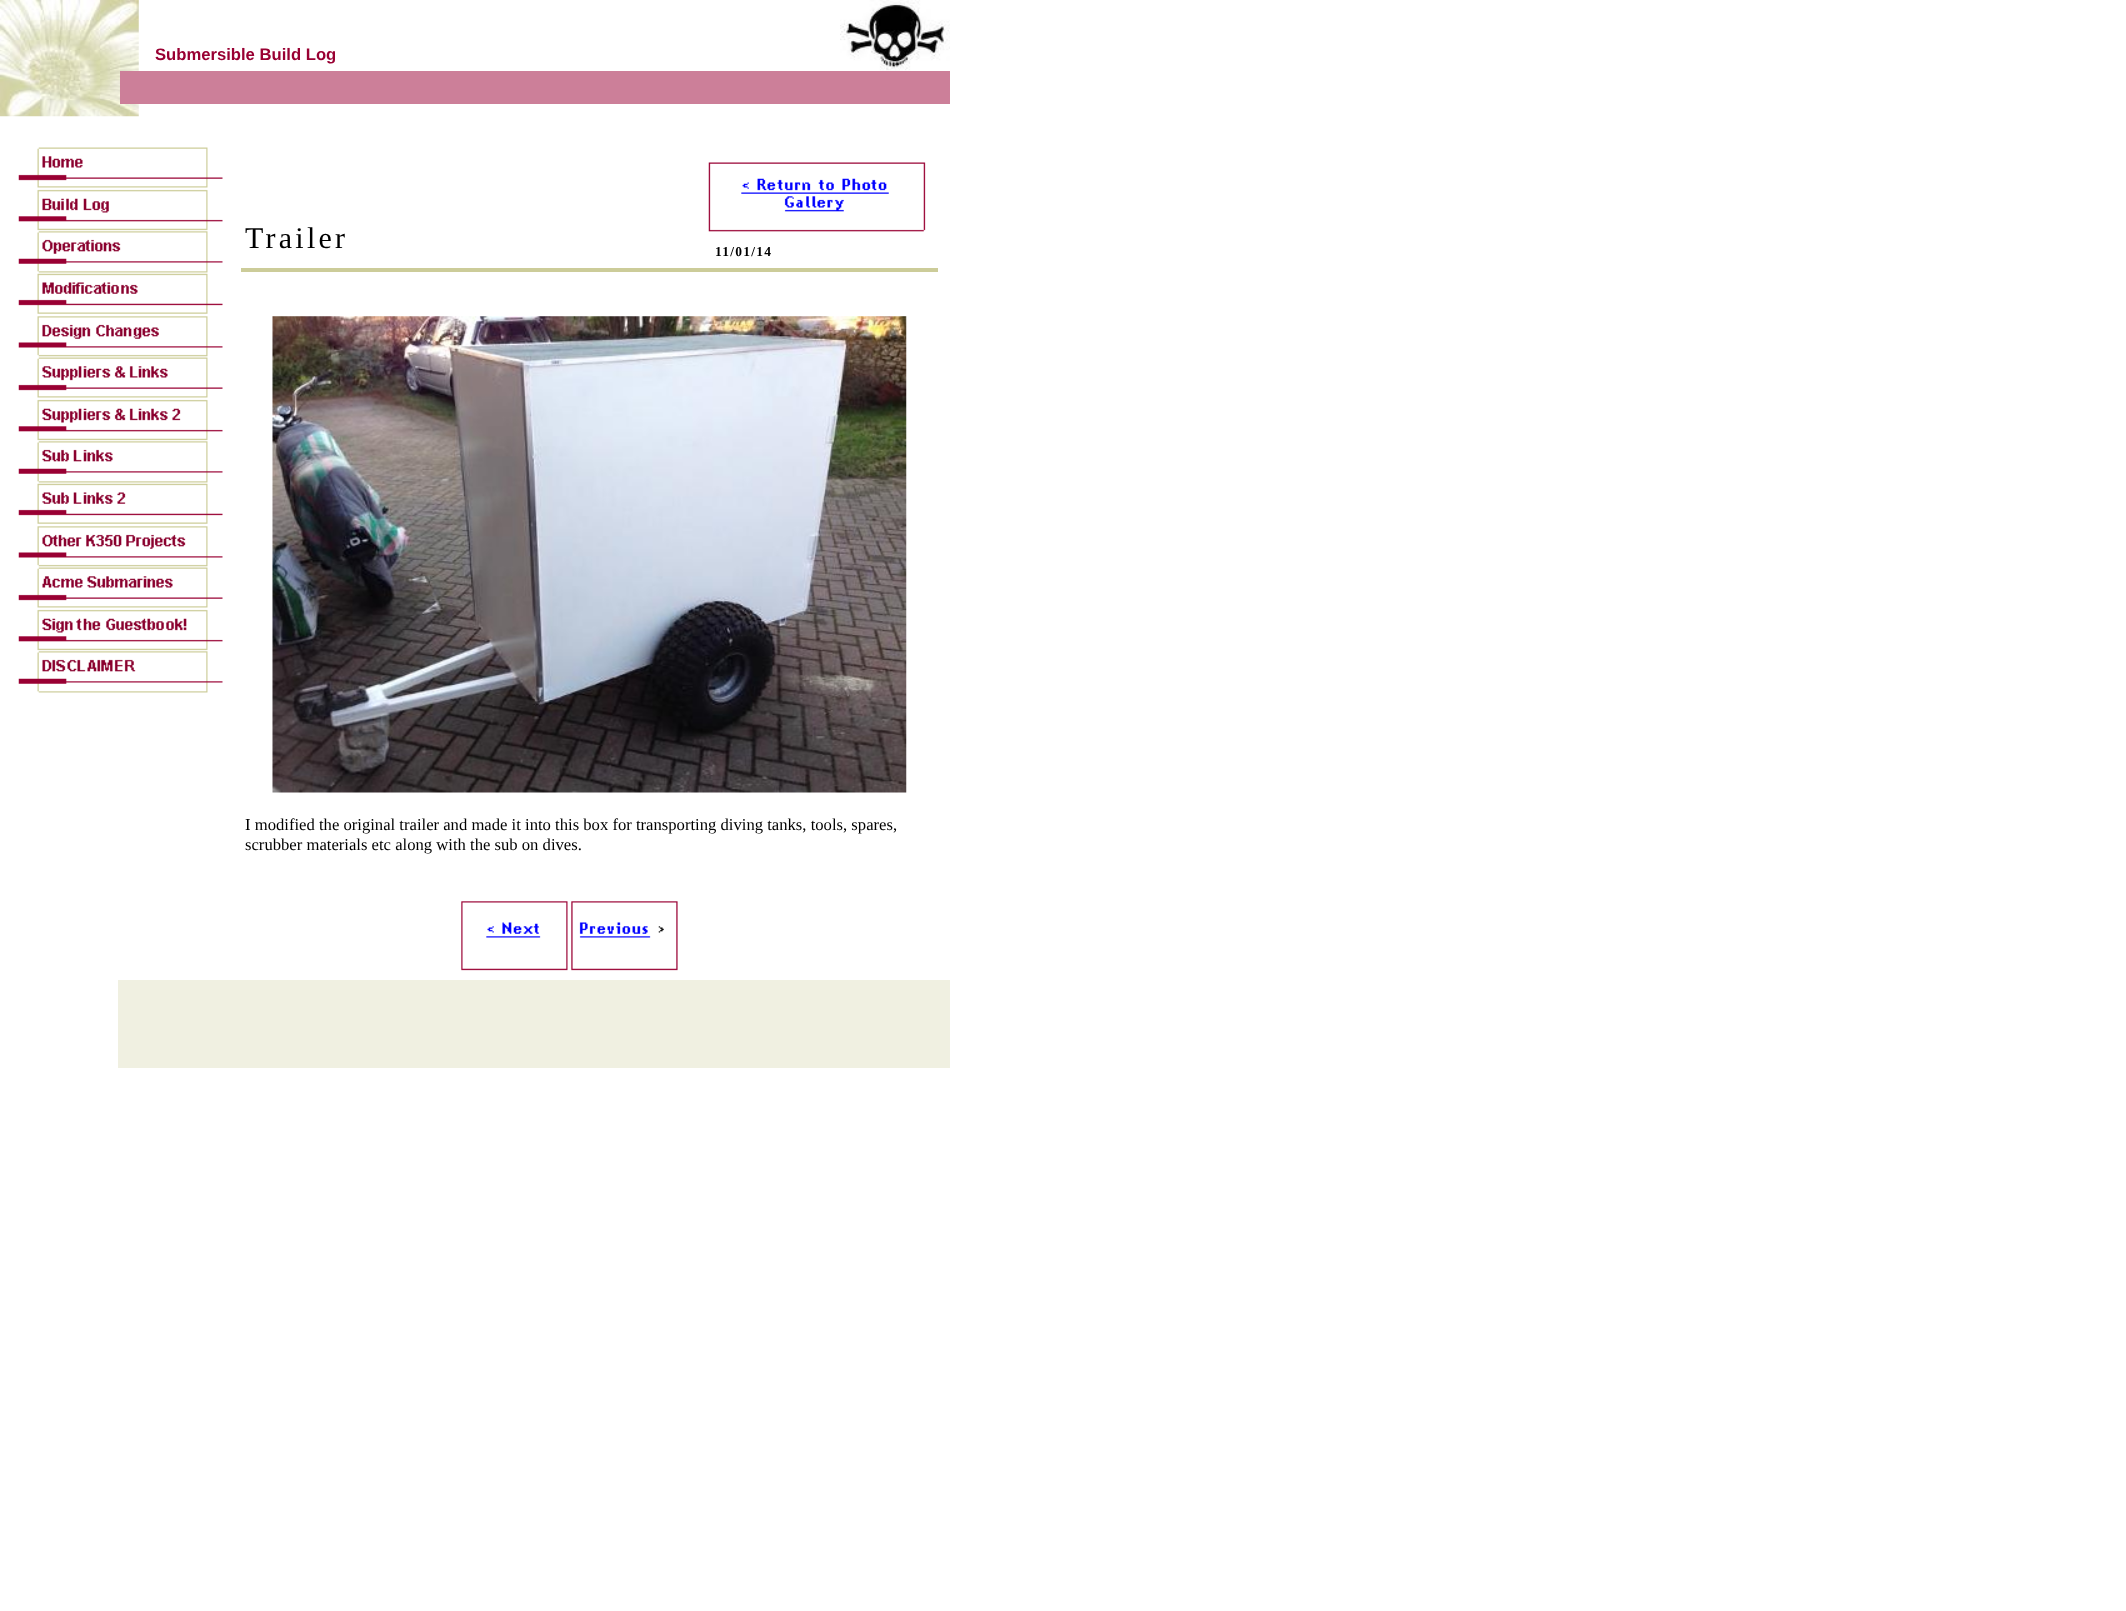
<svg xmlns="http://www.w3.org/2000/svg" width="2126" height="1611">
<style>
.a{font:bold 16.65px Liberation Sans;fill:#903}
.b{font:30px Liberation Serif;letter-spacing:3.25px;fill:#000}
.c{font:bold 13.5px Liberation Serif;letter-spacing:1.25px;fill:#000}
.d{font:16.65px Liberation Serif;fill:#000}
</style>
<rect width="100%" height="100%" fill="#fff"/>
<image href="1.png" x="0" y="0" width="139" height="117"/>
<image href="2.png" x="840" y="0" width="110" height="71"/>
<path fill="#cc7f99" d="M120 71h830v33H120z"/>
<image href="3.png" x="18" y="147" width="205" height="546"/>
<image href="4.png" x="708" y="162" width="218" height="70"/>
<path fill="#cc9" d="M241 268h697v4H241z"/>
<image href="5.png" x="272" y="316" width="635" height="477"/>
<image href="6.png" x="461" y="901" width="107" height="70"/>
<image href="7.png" x="571" y="901" width="107" height="70"/>
<path fill="#f0f0e1" d="M118 980h832v88H118z"/>
<text class="a" x="155" y="60">Submersible Build Log</text>
<text class="b" x="245" y="248">Trailer</text>
<text class="c" x="715" y="256">11/01/14</text>
<text class="d" x="245" y="830">I modified the original trailer and made it into this box for transporting diving tanks, tools, spares,</text>
<text class="d" x="245" y="850">scrubber materials etc along with the sub on dives.</text>
</svg>
